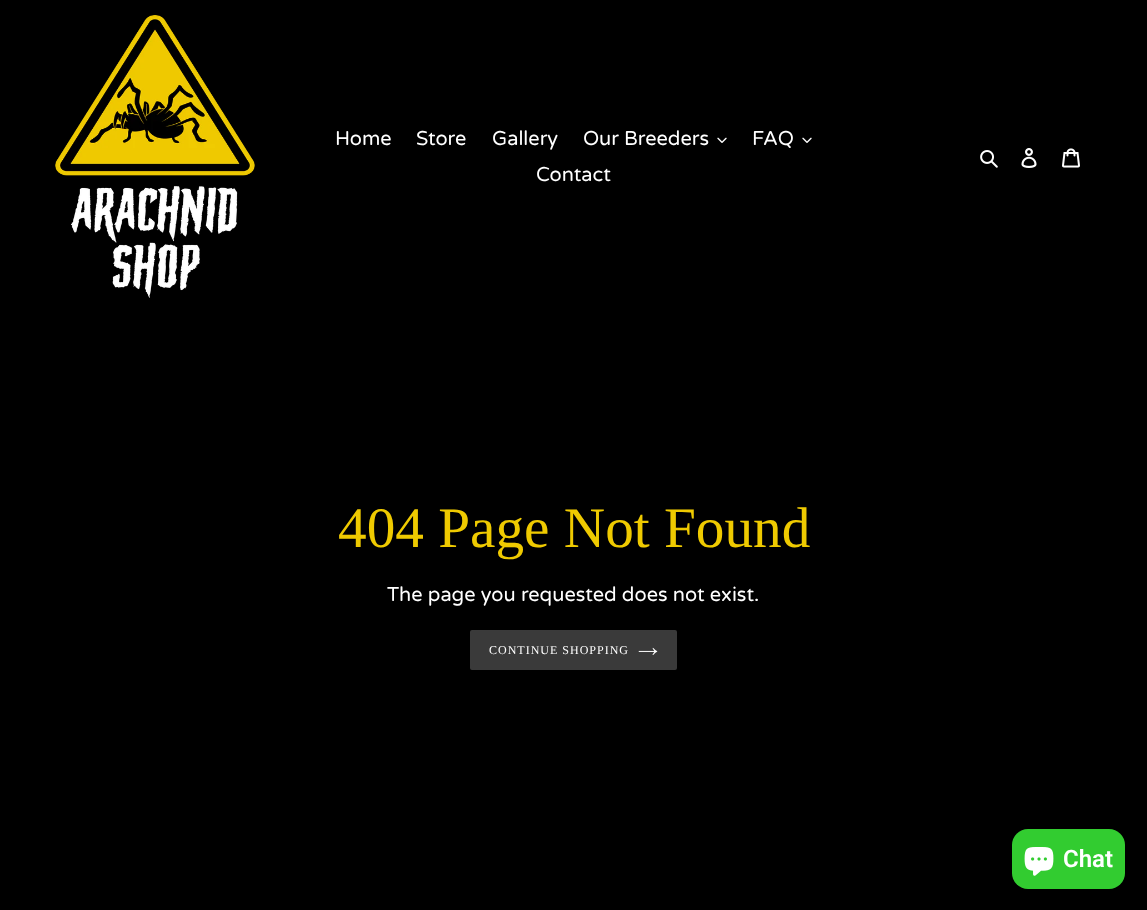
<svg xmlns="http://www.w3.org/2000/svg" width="1147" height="910">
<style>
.a{font:20px Varela Round;fill:#fff}
.b{font:57.25px Liberation Serif;fill:#efca00}
.c{font:12px Liberation Serif;letter-spacing:1px;fill:#fff}
.d{font:600 24px Roboto;fill:#fff}
</style>
<rect width="100%" height="100%" fill="#000"/>
<image href="1.png" x="55" y="15" width="200" height="283"/>
<image href="2.png" x="717" y="137" width="10" height="6"/>
<image href="2.png" x="802" y="137" width="10" height="6"/>
<image href="3.png" x="980" y="150" width="18" height="18"/>
<image href="4.png" x="1021" y="148" width="16" height="20"/>
<image href="5.png" x="1062" y="148" width="18" height="20"/>
<rect fill="#3a3a3a" x="470" y="630" width="207" height="40" rx="2"/>
<image href="6.png" x="638" y="647" width="20" height="8"/>
<rect fill="#32cc30" x="1012" y="829" width="113" height="60" rx="16"/>
<image href="7.png" x="1024" y="847" width="30" height="29"/>
<text class="a" x="335" y="145">Home</text>
<text class="a" x="416" y="145">Store</text>
<text class="a" x="492" y="145">Gallery</text>
<text class="a" x="583" y="145">Our Breeders</text>
<text class="a" x="752" y="145">FAQ</text>
<text class="a" x="536" y="181">Contact</text>
<text class="b" x="338" y="547">404 Page Not Found</text>
<text class="a" x="387" y="601">The page you requested does not exist.</text>
<text class="c" x="489" y="654">CONTINUE SHOPPING</text>
<text class="d" x="1063" y="867">Chat</text>
</svg>
